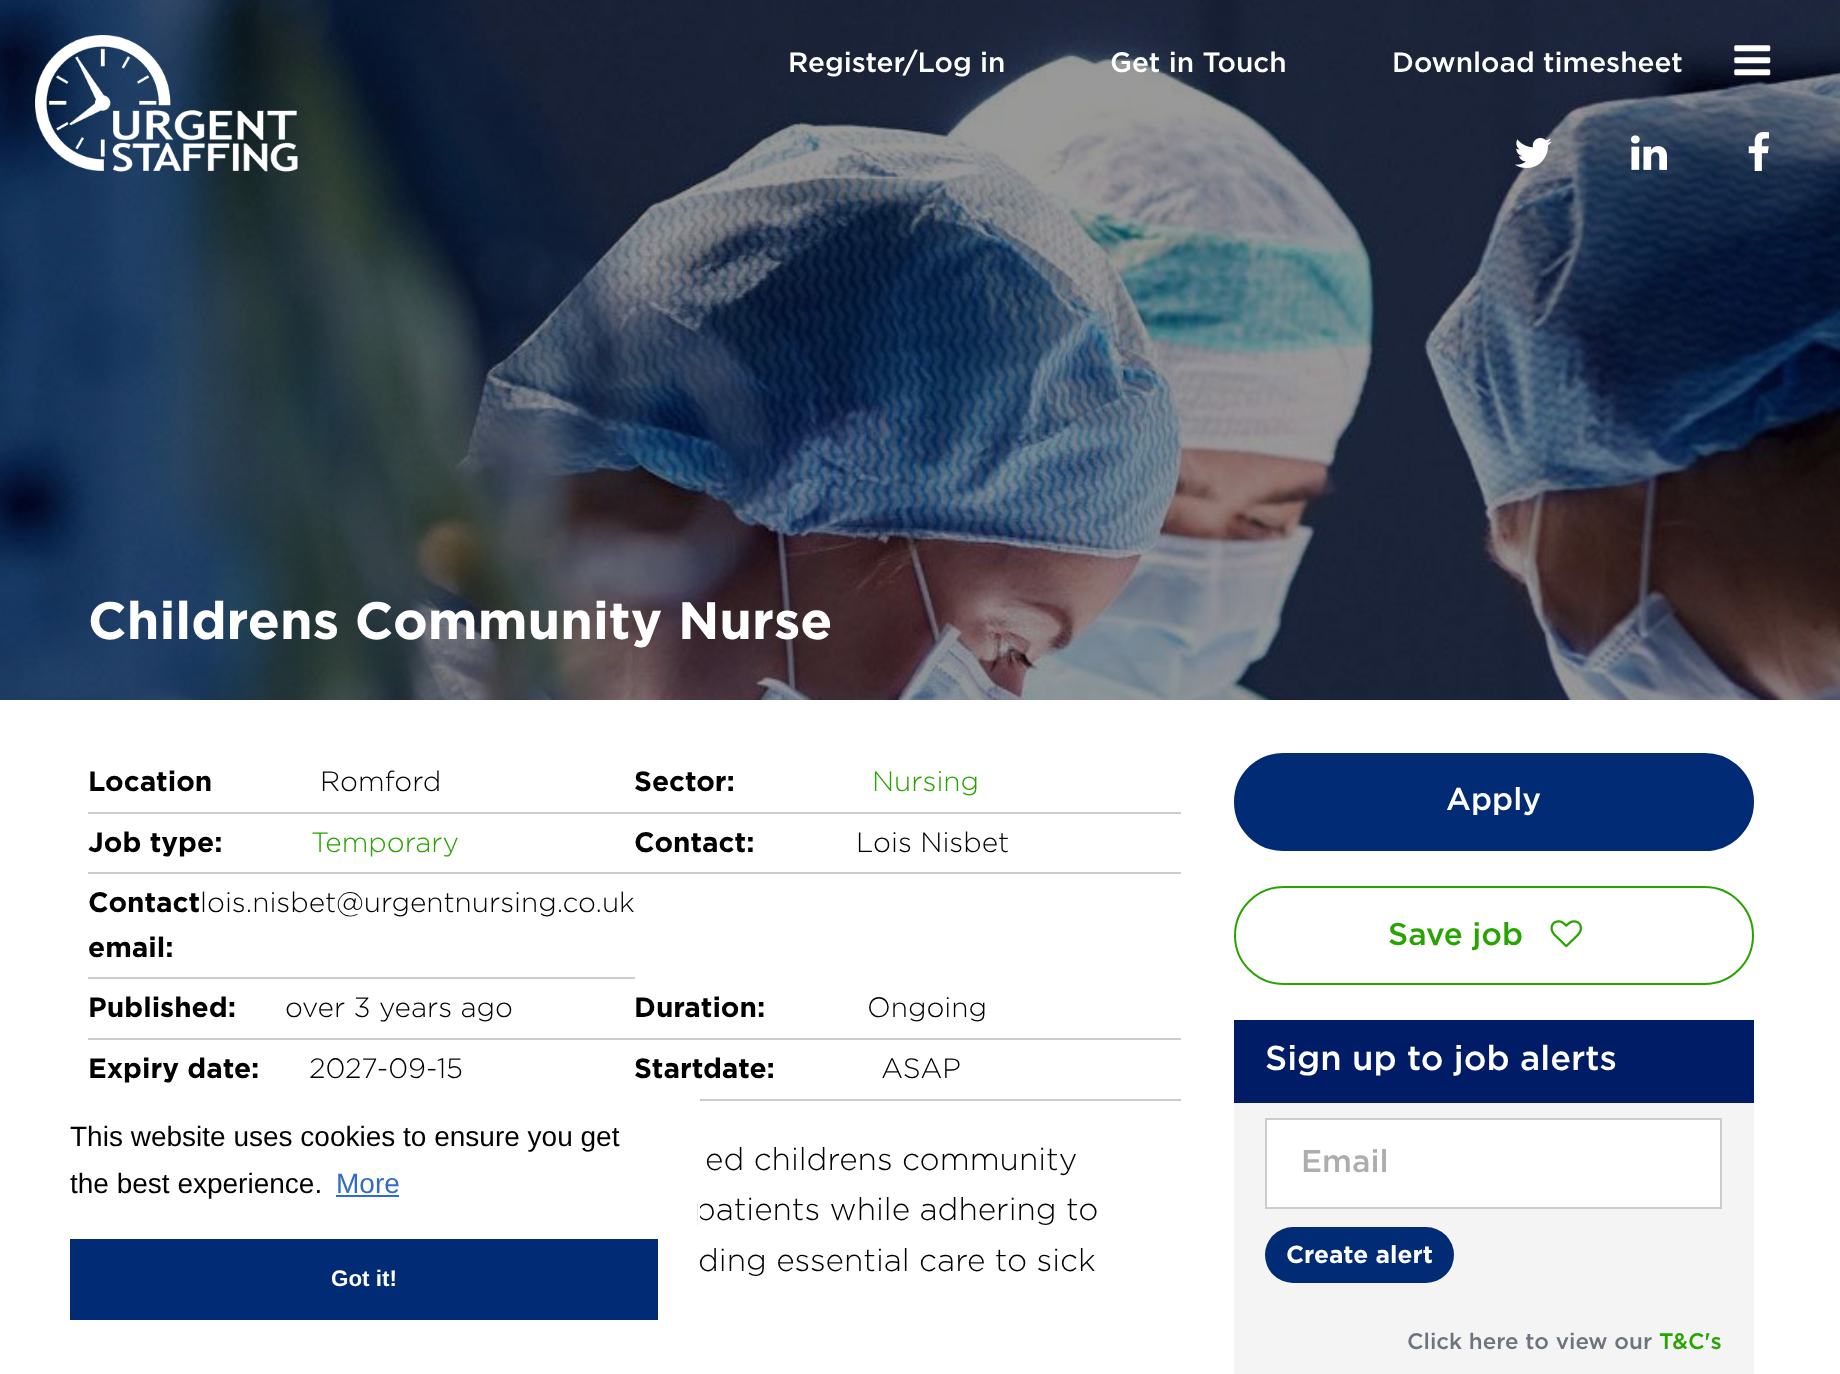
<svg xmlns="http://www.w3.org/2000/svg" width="1840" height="1374">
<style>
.a{font:500 28px Gotham;fill:#fff}
.b{font:bold 52.5px Gotham;fill:#fff}
.c{font:bold 28px Gotham;fill:#000}
.d{font:300 28px Gotham;fill:#000}
.e{font:300 28px Gotham;fill:#28a400}
.f{font:300 31.5px Gotham;fill:#000}
.g{font:500 31.5px Gotham;fill:#fff}
.h{font:500 31.5px Gotham;fill:#28a400}
.i{font:500 34.6px Gotham;fill:#fff}
.j{font:500 31.5px Gotham;fill:#adadad}
.k{font:bold 24.5px Gotham;fill:#fff}
.l{font:500 22.4px Gotham;fill:#6c757d}
.m{font:500 22.4px Gotham;fill:#28a400}
.n{font:28px Liberation Sans;fill:#000}
.o{font:28px Liberation Sans;fill:#336dc2}
.p{font:bold 22.4px Liberation Sans;fill:#fff}
</style>
<rect width="100%" height="100%" fill="#fff"/>
<path fill="#000" d="M0 0h1840v700H0z"/>
<image href="1.png" x="0" y="0" width="1840" height="700"/>
<image href="2.png" x="35" y="35" width="263" height="137"/>
<image href="3.png" x="1734" y="45" width="37" height="31"/>
<image href="4.png" x="1515" y="138" width="37" height="30"/>
<image href="5.png" x="1631" y="135" width="36" height="35"/>
<image href="6.png" x="1748" y="132" width="21" height="39"/>
<path fill="#ccc" d="M88 812h1093v2H88z"/>
<path fill="#ccc" d="M88 872h1093v2H88z"/>
<path fill="#ccc" d="M88 977h547v2H88z"/>
<path fill="#ccc" d="M88 1038h1093v2H88z"/>
<path fill="#ccc" d="M700 1099h481v2H700z"/>
<rect fill="#012b75" stroke="#012b75" stroke-width="2" x="1235" y="754" width="518" height="96" rx="48"/>
<rect fill="none" stroke="#28a400" stroke-width="2" x="1235" y="887" width="518" height="97" rx="48.5"/>
<image href="7.png" x="1550" y="920" width="32" height="28"/>
<path fill="#001c66" d="M1234 1020h520v83H1234z"/>
<path fill="#f4f4f4" d="M1234 1103h520v271H1234z"/>
<path fill="#fff" stroke="#ccc" stroke-width="2" d="M1266 1119h455v89H1266z"/>
<rect fill="#012b75" x="1265" y="1227" width="189" height="56" rx="28"/>
<path fill="#336dc2" d="M336 1195h63v2H336z"/>
<path fill="#012b75" d="M70 1239h588v81H70z"/>
<text class="a" x="788" y="72">Register/Log in</text>
<text class="a" x="1110" y="72">Get in Touch</text>
<text class="a" x="1392" y="72">Download timesheet</text>
<text class="b" x="88" y="639">Childrens Community Nurse</text>
<text class="c" x="88" y="791">Location</text>
<text class="d" x="320" y="791">Romford</text>
<text class="c" x="634" y="791">Sector:</text>
<text class="e" x="872" y="791">Nursing</text>
<text class="c" x="88" y="852">Job type:</text>
<text class="e" x="311" y="852">Temporary</text>
<text class="c" x="634" y="852">Contact:</text>
<text class="d" x="856" y="852">Lois Nisbet</text>
<text class="c" x="88" y="912">Contact</text>
<text class="c" x="88" y="957">email:</text>
<text class="d" x="200" y="912">lois.nisbet@urgentnursing.co.uk</text>
<text class="c" x="88" y="1017">Published:</text>
<text class="d" x="285" y="1017">over 3 years ago</text>
<text class="c" x="634" y="1017">Duration:</text>
<text class="d" x="867" y="1017">Ongoing</text>
<text class="c" x="88" y="1078">Expiry date:</text>
<text class="d" x="309" y="1078">2027-09-15</text>
<text class="c" x="634" y="1078">Startdate:</text>
<text class="d" x="881" y="1078">ASAP</text>
<text class="f" x="705" y="1170">ed childrens community</text>
<text class="f" x="695" y="1220">patients while adhering to</text>
<text class="f" x="698" y="1271">ding essential care to sick</text>
<text class="g" x="1446" y="810">Apply</text>
<text class="h" x="1388" y="945">Save job</text>
<text class="i" x="1265" y="1070">Sign up to job alerts</text>
<text class="j" x="1301" y="1172">Email</text>
<text class="k" x="1286" y="1263">Create alert</text>
<text class="l" x="1407" y="1349">Click here to view our</text>
<text class="m" x="1659" y="1349">T&amp;C's</text>
<path fill="#fff" d="M698 1203h2v23H698z"/>
<text class="n" x="70" y="1146">This website uses cookies to ensure you get</text>
<text class="n" x="70" y="1193">the best experience.</text>
<text class="o" x="336" y="1193">More</text>
<text class="p" x="331" y="1286">Got it!</text>
</svg>
